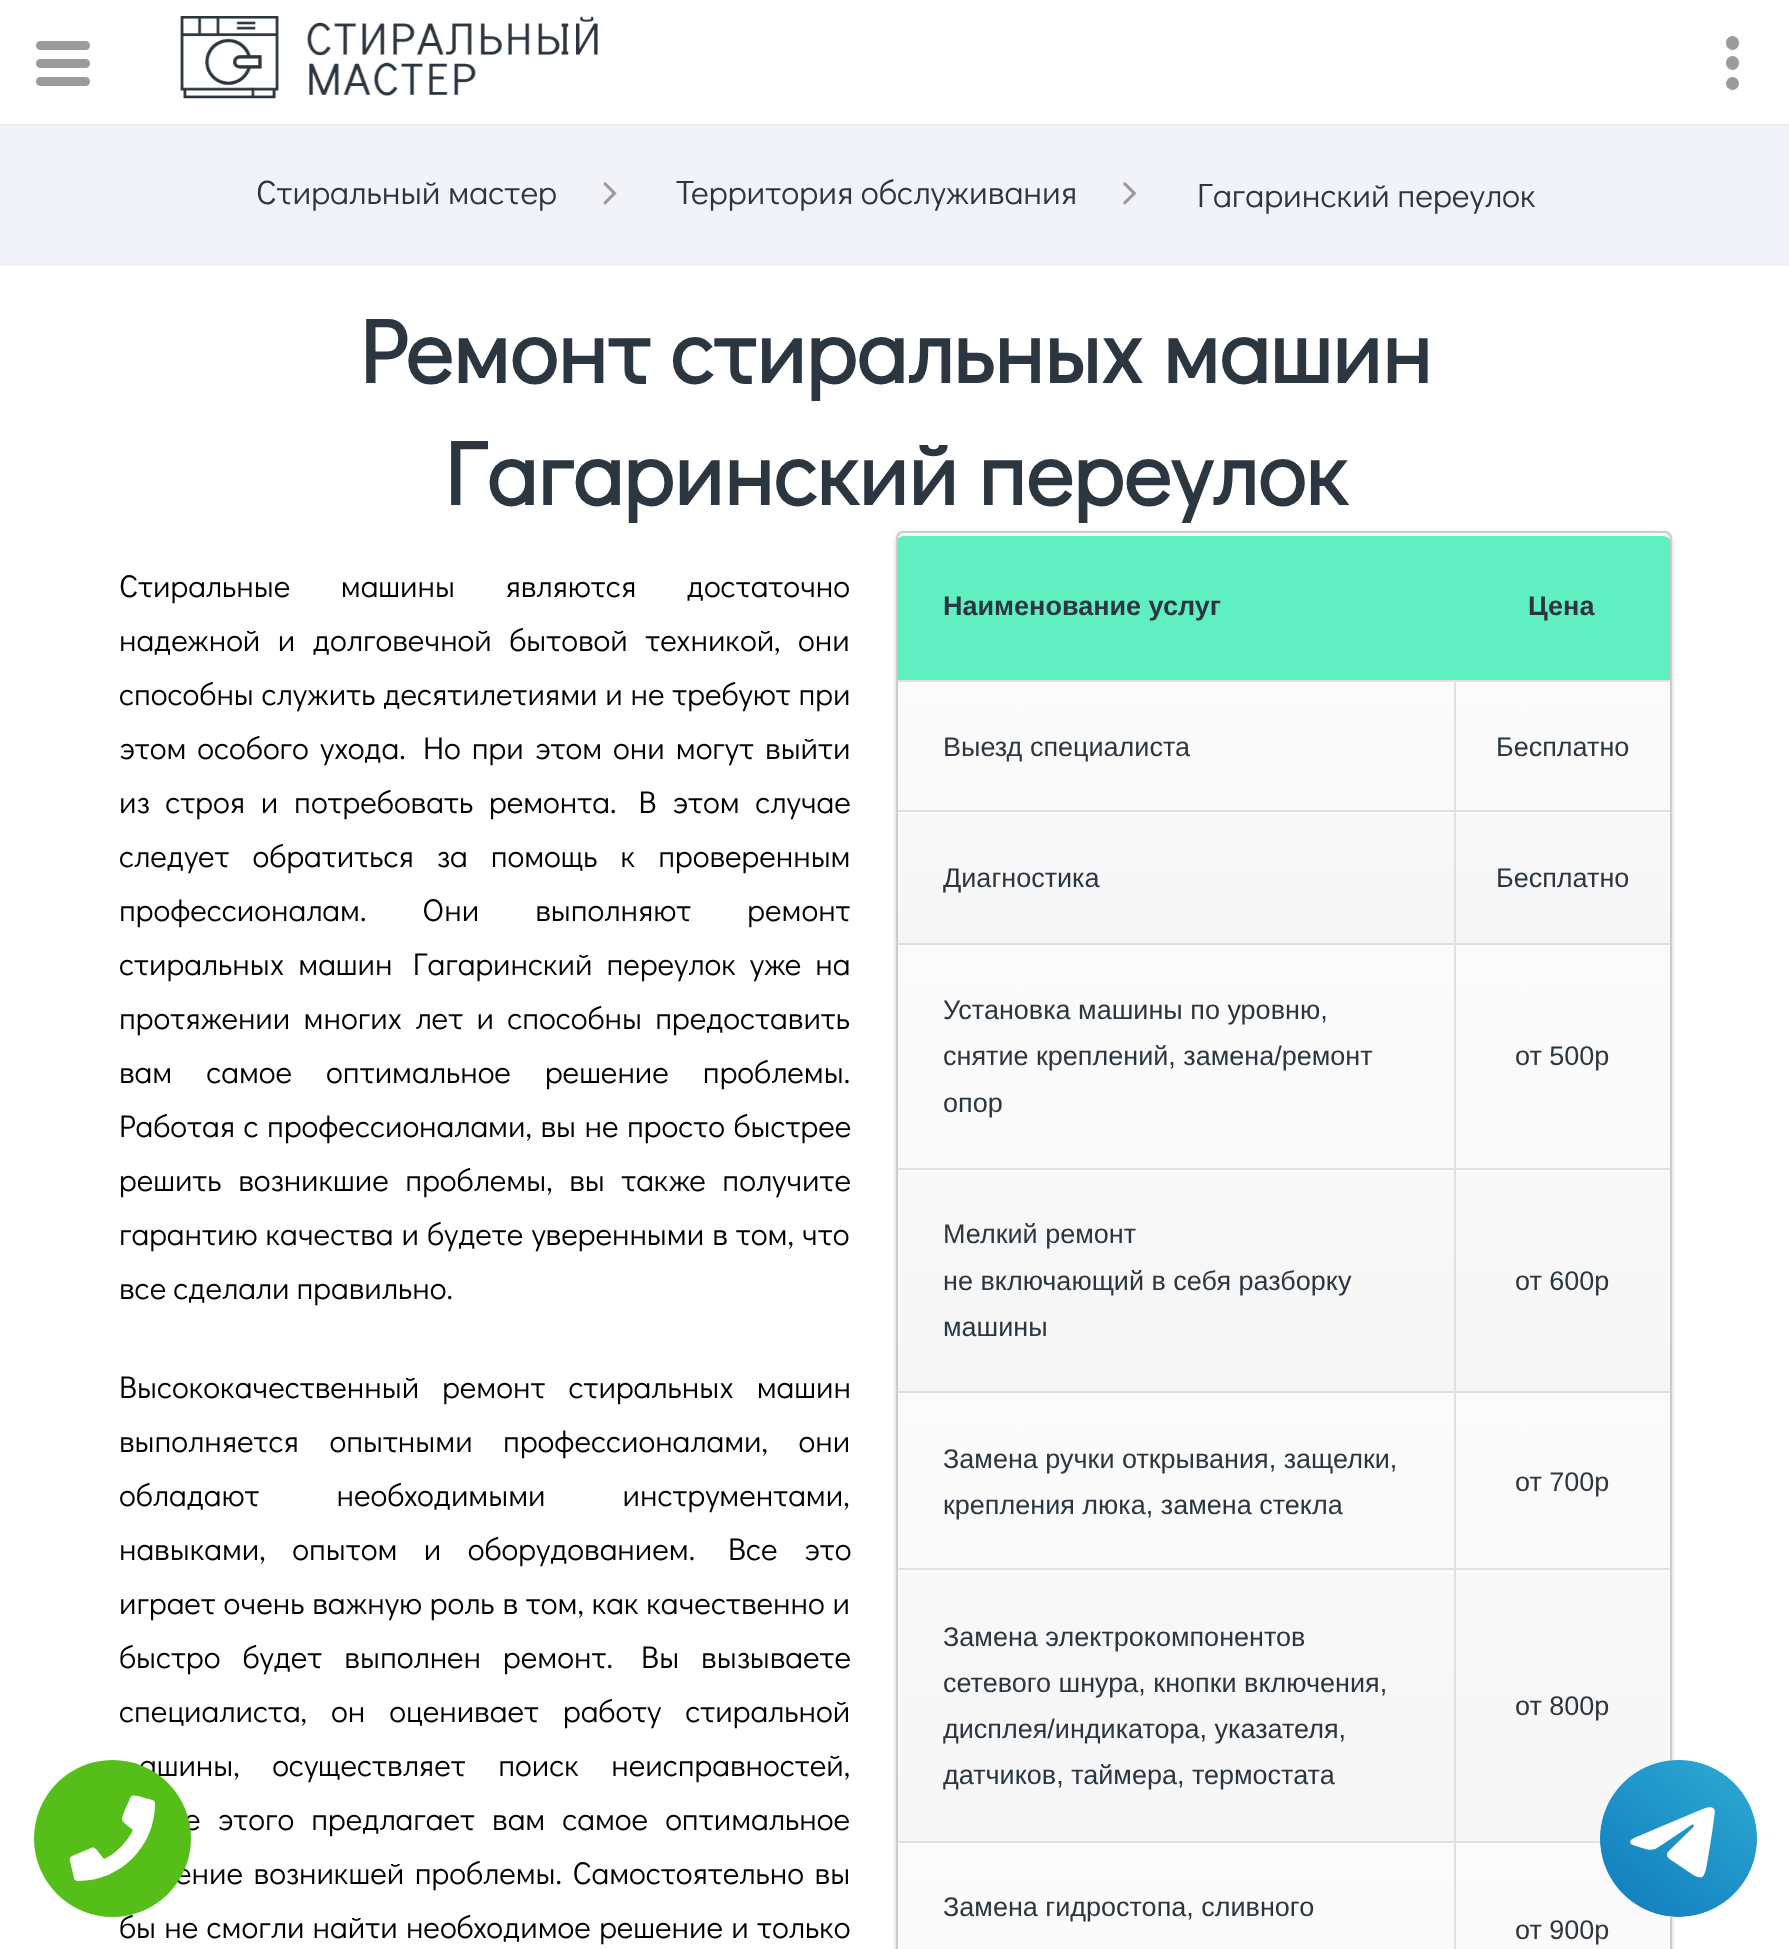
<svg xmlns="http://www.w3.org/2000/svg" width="1789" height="1949">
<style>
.a{font:33.75px Didact Gothic;fill:#2c3640}
.b{font:bold 90px Didact Gothic;fill:#2c3640}
.c{font:31.5px Didact Gothic;fill:#000}
.d{font:bold 27px Liberation Sans;fill:#2c3640}
.e{font:27px Liberation Sans;fill:#2c3640}
</style>
<defs>
<linearGradient id="g1" gradientUnits="userSpaceOnUse" x1="898" y1="684" x2="898" y2="810"><stop offset="0" stop-color="#fbfbfb"/><stop offset="1" stop-color="#fafafa"/></linearGradient>
<linearGradient id="g2" gradientUnits="userSpaceOnUse" x1="1456" y1="684" x2="1456" y2="810"><stop offset="0" stop-color="#fbfbfb"/><stop offset="1" stop-color="#fafafa"/></linearGradient>
<linearGradient id="g3" gradientUnits="userSpaceOnUse" x1="898" y1="686" x2="898" y2="815"><stop offset="0" stop-color="#f8f8f8"/><stop offset="1" stop-color="#f6f6f6"/></linearGradient>
<linearGradient id="g4" gradientUnits="userSpaceOnUse" x1="898" y1="815" x2="898" y2="943"><stop offset="0" stop-color="#f8f8f8"/><stop offset="1" stop-color="#f6f6f6"/></linearGradient>
<linearGradient id="g5" gradientUnits="userSpaceOnUse" x1="1456" y1="686" x2="1456" y2="815"><stop offset="0" stop-color="#f8f8f8"/><stop offset="1" stop-color="#f6f6f6"/></linearGradient>
<linearGradient id="g6" gradientUnits="userSpaceOnUse" x1="1456" y1="815" x2="1456" y2="943"><stop offset="0" stop-color="#f8f8f8"/><stop offset="1" stop-color="#f6f6f6"/></linearGradient>
<linearGradient id="g7" gradientUnits="userSpaceOnUse" x1="898" y1="947" x2="898" y2="1168"><stop offset="0" stop-color="#fbfbfb"/><stop offset="1" stop-color="#fafafa"/></linearGradient>
<linearGradient id="g8" gradientUnits="userSpaceOnUse" x1="1456" y1="947" x2="1456" y2="1168"><stop offset="0" stop-color="#fbfbfb"/><stop offset="1" stop-color="#fafafa"/></linearGradient>
<linearGradient id="g9" gradientUnits="userSpaceOnUse" x1="898" y1="1172" x2="898" y2="1391"><stop offset="0" stop-color="#f8f8f8"/><stop offset="1" stop-color="#f6f6f6"/></linearGradient>
<linearGradient id="g10" gradientUnits="userSpaceOnUse" x1="1456" y1="1172" x2="1456" y2="1391"><stop offset="0" stop-color="#f8f8f8"/><stop offset="1" stop-color="#f6f6f6"/></linearGradient>
<linearGradient id="g11" gradientUnits="userSpaceOnUse" x1="898" y1="1395" x2="898" y2="1568"><stop offset="0" stop-color="#fbfbfb"/><stop offset="1" stop-color="#fafafa"/></linearGradient>
<linearGradient id="g12" gradientUnits="userSpaceOnUse" x1="898" y1="1568" x2="898" y2="1742"><stop offset="0" stop-color="#fbfbfb"/><stop offset="1" stop-color="#fafafa"/></linearGradient>
<linearGradient id="g13" gradientUnits="userSpaceOnUse" x1="1456" y1="1395" x2="1456" y2="1568"><stop offset="0" stop-color="#fbfbfb"/><stop offset="1" stop-color="#fafafa"/></linearGradient>
<linearGradient id="g14" gradientUnits="userSpaceOnUse" x1="1456" y1="1568" x2="1456" y2="1742"><stop offset="0" stop-color="#fbfbfb"/><stop offset="1" stop-color="#fafafa"/></linearGradient>
<linearGradient id="g15" gradientUnits="userSpaceOnUse" x1="898" y1="1573" x2="898" y2="1841"><stop offset="0" stop-color="#f8f8f8"/><stop offset="1" stop-color="#f6f6f6"/></linearGradient>
<linearGradient id="g16" gradientUnits="userSpaceOnUse" x1="1456" y1="1573" x2="1456" y2="1841"><stop offset="0" stop-color="#f8f8f8"/><stop offset="1" stop-color="#f6f6f6"/></linearGradient>
<linearGradient id="g17" gradientUnits="userSpaceOnUse" x1="898" y1="1845" x2="898" y2="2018"><stop offset="0" stop-color="#fbfbfb"/><stop offset="1" stop-color="#fafafa"/></linearGradient>
<linearGradient id="g18" gradientUnits="userSpaceOnUse" x1="1456" y1="1845" x2="1456" y2="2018"><stop offset="0" stop-color="#fbfbfb"/><stop offset="1" stop-color="#fafafa"/></linearGradient>
</defs>
<rect width="100%" height="100%" fill="#fff"/>
<path fill="#eaeced" d="M0 124h1789v2H0z"/>
<rect fill="#9b9b9b" x="36" y="59" width="54" height="9" rx="4.5"/>
<rect fill="#9b9b9b" x="36" y="41" width="54" height="9" rx="4.5"/>
<rect fill="#9b9b9b" x="36" y="77" width="54" height="9" rx="4.5"/>
<image href="1.png" x="180" y="16" width="418" height="83"/>
<rect fill="#9b9b9b" x="1726" y="56" width="13" height="14" rx="6.5"/>
<rect fill="#9b9b9b" x="1726" y="36" width="13" height="14" rx="6.5"/>
<circle fill="#9b9b9b" cx="1732.5" cy="83.5" r="6.5"/>
<path fill="#f2f3f8" d="M0 126h1789v140H0z"/>
<image href="2.png" x="603" y="182" width="14" height="23"/>
<image href="3.png" x="1123" y="182" width="14" height="23"/>
<rect fill="#d1d1d1" filter="blur(2px)" x="896" y="533" width="776" height="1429" rx="7"/>
<rect fill="#eaebec" stroke="#ccc" stroke-width="2" x="897" y="532" width="774" height="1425" rx="6"/>
<path fill="#5fefc1" d="M905 533h549v149h-556v-142c0-4 3-7 7-7z"/>
<path fill="#fafafa" d="M904 536h550v-3h-552c-2 1-4 4-4 7c0-2 3-4 6-4z"/>
<path fill="#e0e0e0" d="M898 680h556v2H898z"/>
<path fill="#5fefc1" d="M1454 533h209c4 0 7 3 7 7v142h-216z"/>
<path fill="#fafafa" d="M1454 536v-3h211c2 0 5 4 5 6c-2-2-5-3-7-3z"/>
<path fill="#e0e0e0" d="M1454 680h216v2H1454z"/>
<path fill="url(#g1)" d="M898 684h556v126H898z"/>
<path fill="#fff" d="M898 682h772v2H898z"/>
<path fill="#e0e0e0" d="M898 810h772v2H898z"/>
<path fill="url(#g2)" d="M1456 684h214v126H1456z"/>
<path fill="#e0e0e0" d="M1454 682h2v130H1454z"/>
<path fill="url(#g3)" d="M898 814h556v1H898z"/>
<path fill="url(#g4)" d="M898 815h556v128H898z"/>
<path fill="#fff" d="M898 812h772v2H898z"/>
<path fill="#e0e0e0" d="M898 943h772v2H898z"/>
<path fill="url(#g5)" d="M1454 814h216v1H1454z"/>
<path fill="url(#g6)" d="M1456 815h214v128H1456z"/>
<path fill="#e0e0e0" d="M1454 812h2v133H1454z"/>
<path fill="url(#g7)" d="M898 947h556v221H898z"/>
<path fill="#fff" d="M898 945h772v2H898z"/>
<path fill="#e0e0e0" d="M898 1168h772v2H898z"/>
<path fill="url(#g8)" d="M1456 947h214v221H1456z"/>
<path fill="#e0e0e0" d="M1454 945h2v225H1454z"/>
<path fill="url(#g9)" d="M898 1172h556v219H898z"/>
<path fill="#fff" d="M898 1170h772v2H898z"/>
<path fill="#e0e0e0" d="M898 1391h772v2H898z"/>
<path fill="url(#g10)" d="M1456 1172h214v219H1456z"/>
<path fill="#e0e0e0" d="M1454 1170h2v223H1454z"/>
<path fill="url(#g11)" d="M898 1395h556v173H898z"/>
<path fill="url(#g12)" d="M898 1570h556v1H898z"/>
<path fill="#fff" d="M898 1393h772v2H898z"/>
<path fill="#e0e0e0" d="M898 1568h772v2H898z"/>
<path fill="url(#g13)" d="M1456 1395h214v173H1456z"/>
<path fill="url(#g14)" d="M1454 1570h216v1H1454z"/>
<path fill="#e0e0e0" d="M1454 1393h2v178H1454z"/>
<path fill="url(#g15)" d="M898 1573h556v268H898z"/>
<path fill="#fff" d="M898 1571h772v2H898z"/>
<path fill="#e0e0e0" d="M898 1841h703v2H898z"/>
<path fill="url(#g16)" d="M1456 1573h214v268H1456z"/>
<path fill="#e0e0e0" d="M1454 1571h2v272H1454z"/>
<path fill="url(#g17)" d="M898 1845h556v104H898z"/>
<path fill="#fff" d="M898 1843h703v2H898z"/>
<path fill="url(#g18)" d="M1456 1845h214v104H1456z"/>
<path fill="#e0e0e0" d="M1454 1843h2v106H1454z"/>
<circle fill="#fff" cx="1678.5" cy="1838.5" r="78.5"/>
<image href="4.png" x="1600" y="1760" width="157" height="157"/>
<text class="a" x="256" y="204">Стиральный мастер</text>
<text class="a" x="676" y="204">Территория обслуживания</text>
<text class="a" x="1197" y="207">Гагаринский переулок</text>
<text class="b" x="359" y="383">Ремонт стиральных машин</text>
<text class="b" x="444" y="505">Гагаринский переулок</text>
<text class="c" x="119" y="597" word-spacing="43.5">Стиральные машины являются достаточно</text>
<text class="c" x="119" y="651" word-spacing="10.5">надежной и долговечной бытовой техникой, они</text>
<text class="c" x="119" y="705" word-spacing="0.75">способны служить десятилетиями и не требуют при</text>
<text class="c" x="119" y="759" word-spacing="4">этом особого ухода. Но при этом они могут выйти</text>
<text class="c" x="119" y="813" word-spacing="8.75">из строя и потребовать ремонта. В этом случае</text>
<text class="c" x="119" y="867" word-spacing="16">следует обратиться за помощь к проверенным</text>
<text class="c" x="119" y="921" word-spacing="49">профессионалам. Они выполняют ремонт</text>
<text class="c" x="119" y="975" word-spacing="7">стиральных машин Гагаринский переулок уже на</text>
<text class="c" x="119" y="1029" word-spacing="6.25">протяжении многих лет и способны предоставить</text>
<text class="c" x="119" y="1083" word-spacing="27">вам самое оптимальное решение проблемы.</text>
<text class="c" x="119" y="1137" word-spacing="1.5">Работая с профессионалами, вы не просто быстрее</text>
<text class="c" x="119" y="1191" word-spacing="9.5">решить возникшие проблемы, вы также получите</text>
<text class="c" x="119" y="1245" word-spacing="1">гарантию качества и будете уверенными в том, что</text>
<text class="c" x="119" y="1299">все сделали правильно.</text>
<text class="d" x="943" y="615">Наименование услуг</text>
<text class="d" x="1528" y="615">Цена</text>
<text class="e" x="943" y="756">Выезд специалиста</text>
<text class="e" x="1496" y="756">Бесплатно</text>
<text class="e" x="943" y="887">Диагностика</text>
<text class="e" x="1496" y="887">Бесплатно</text>
<text class="e" x="943" y="1019">Установка машины по уровню,</text>
<text class="e" x="943" y="1065">снятие креплений, замена/ремонт</text>
<text class="e" x="943" y="1112">опор</text>
<text class="e" x="1515" y="1065">от 500р</text>
<text class="e" x="943" y="1243">Мелкий ремонт</text>
<text class="e" x="943" y="1290">не включающий в себя разборку</text>
<text class="e" x="943" y="1336">машины</text>
<text class="e" x="1515" y="1290">от 600р</text>
<text class="e" x="943" y="1468">Замена ручки открывания, защелки,</text>
<text class="e" x="943" y="1514">крепления люка, замена стекла</text>
<text class="e" x="1515" y="1491">от 700р</text>
<text class="e" x="943" y="1646">Замена электрокомпонентов</text>
<text class="e" x="943" y="1692">сетевого шнура, кнопки включения,</text>
<text class="e" x="943" y="1738">дисплея/индикатора, указателя,</text>
<text class="e" x="943" y="1784">датчиков, таймера, термостата</text>
<text class="e" x="1515" y="1715">от 800р</text>
<text class="e" x="943" y="1916">Замена гидростопа, сливного</text>
<text class="e" x="1515" y="1939">от 900р</text>
<text class="c" x="119" y="1398" word-spacing="16">Высококачественный ремонт стиральных машин</text>
<text class="c" x="119" y="1452" word-spacing="23.5">выполняется опытными профессионалами, они</text>
<text class="c" x="119" y="1506" word-spacing="70">обладают необходимыми инструментами,</text>
<text class="c" x="119" y="1560" word-spacing="19.5">навыками, опытом и оборудованием. Все это</text>
<text class="c" x="119" y="1614" word-spacing="0.75">играет очень важную роль в том, как качественно и</text>
<text class="c" x="119" y="1668" word-spacing="15">быстро будет выполнен ремонт. Вы вызываете</text>
<text class="c" x="119" y="1722" word-spacing="17">специалиста, он оценивает работу стиральной</text>
<text class="c" x="139" y="1776" word-spacing="25.5">ашины, осуществляет поиск неисправностей,</text>
<text class="c" x="184" y="1830" word-spacing="10">е этого предлагает вам самое оптимальное</text>
<text class="c" x="175" y="1884" word-spacing="3.5">ение возникшей проблемы. Самостоятельно вы</text>
<text class="c" x="119" y="1938" word-spacing="1.25">бы не смогли найти необходимое решение и только</text>
<circle fill="#56be19" cx="112.5" cy="1838.5" r="78.5"/>
<path fill="#fff" d="M152 1800l-14-4c-6-1-7-1-9 5l-3 6c-6 16-6 12 7 23c-6 12-16 23-29 29l-8-10c-2-1-3-2-5-1l-19 8c-2 1-3 3-2 5l4 17c0 2 2 3 4 3c43 0 77-35 77-77c0-2-1-4-3-4z"/>
</svg>
